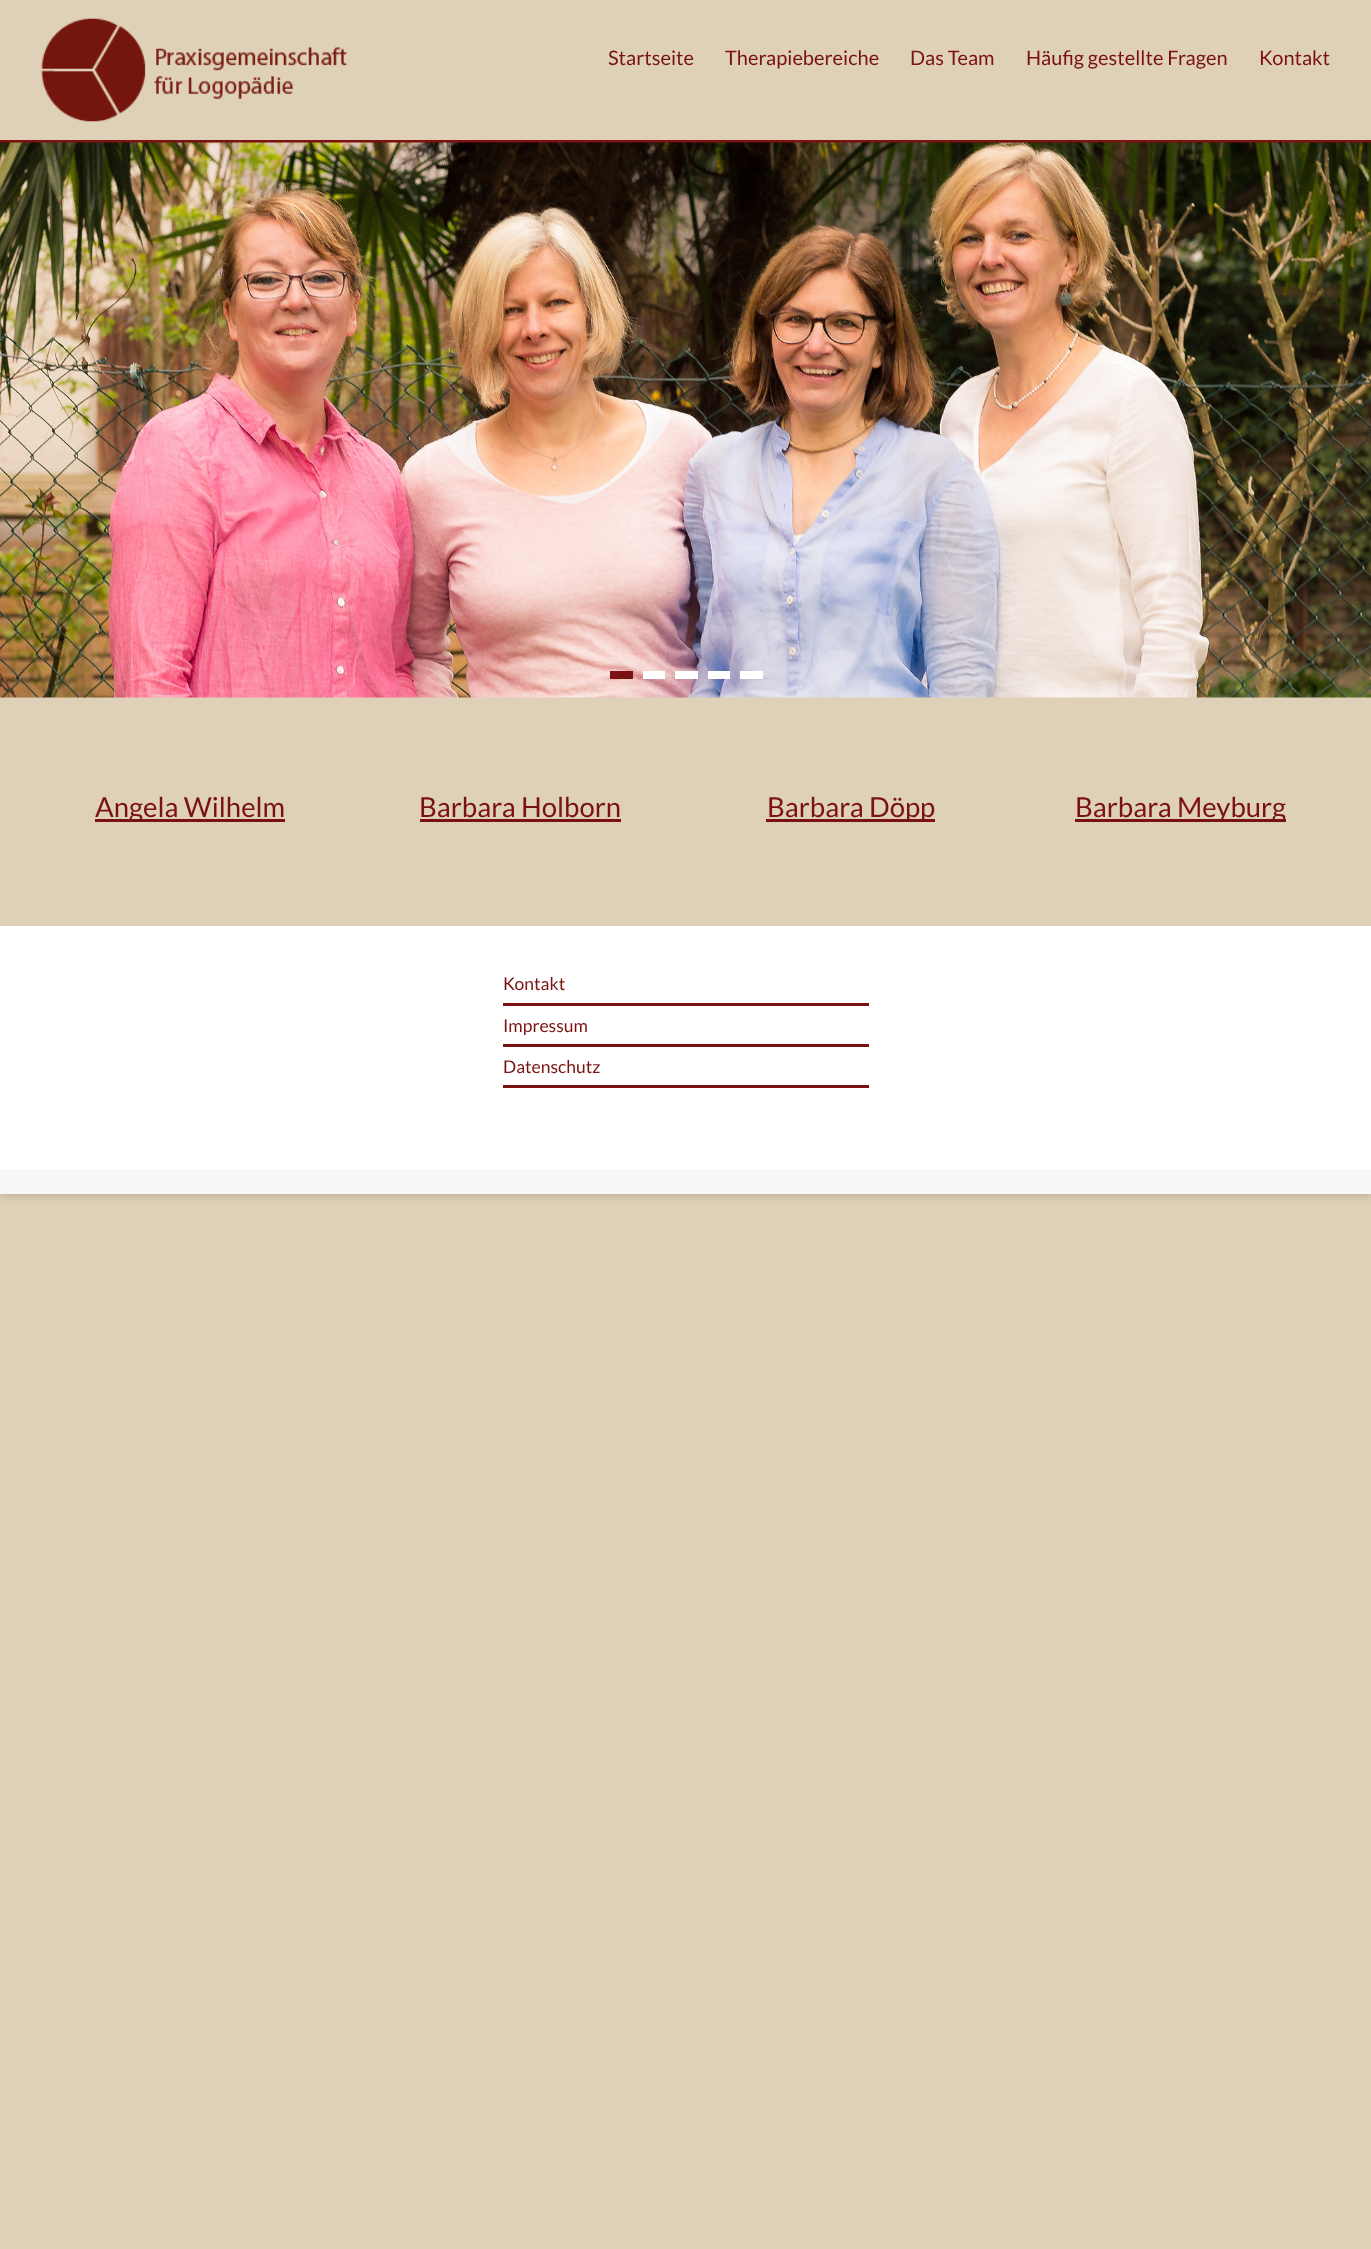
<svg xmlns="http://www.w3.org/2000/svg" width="1371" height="2249">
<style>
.a{font:20px Lato;fill:#7a1212}
.b{font:27.5px Lato;fill:#7a1212}
.c{font:17.5px Lato;fill:#7a1212}
</style>
<rect width="100%" height="100%" fill="#dfd1b7"/>
<path fill="#6464644d" filter="blur(4px)" d="M0 3h1371v1193H0z"/>
<path fill="#fff" d="M0 926h1371v243H0z"/>
<path fill="#dfd1b7" d="M0 0h1371v140H0z"/>
<path fill="#7a1212" d="M0 140h1371v3H0z"/>
<image href="1.png" x="41" y="18" width="306" height="104"/>
<path fill="#dfd1b7" d="M0 697h1371v229H0z"/>
<image href="2.png" x="0" y="142" width="1371" height="556"/>
<path fill="#7a1212" d="M610 671h23v8H610z"/>
<path fill="#fff" d="M643 671h22v8H643z"/>
<path fill="#fff" d="M675 671h23v8H675z"/>
<path fill="#fff" d="M708 671h22v8H708z"/>
<path fill="#fff" d="M740 671h23v8H740z"/>
<path fill="#7a1212" d="M95 819h190v3H95z"/>
<path fill="#7a1212" d="M420 819h201v3H420z"/>
<path fill="#7a1212" d="M766 819h169v3H766z"/>
<path fill="#7a1212" d="M1075 819h211v3H1075z"/>
<path fill="#7a1212" d="M503 1003h366v3H503z"/>
<path fill="#7a1212" d="M503 1044h366v3H503z"/>
<path fill="#7a1212" d="M503 1085h366v3H503z"/>
<path fill="#f8f8f8" d="M0 1169h1371v25H0z"/>
<text class="a" x="608" y="65">Startseite</text>
<text class="a" x="725" y="65">Therapiebereiche</text>
<text class="a" x="910" y="65">Das Team</text>
<text class="a" x="1026" y="65">Häufig gestellte Fragen</text>
<text class="a" x="1259" y="65">Kontakt</text>
<text class="b" x="95" y="817">Angela Wilhelm</text>
<text class="b" x="419" y="817">Barbara Holborn</text>
<text class="b" x="767" y="817">Barbara Döpp</text>
<text class="b" x="1075" y="817">Barbara Meyburg</text>
<text class="c" x="503" y="990">Kontakt</text>
<text class="c" x="503" y="1032">Impressum</text>
<text class="c" x="503" y="1073">Datenschutz</text>
</svg>
